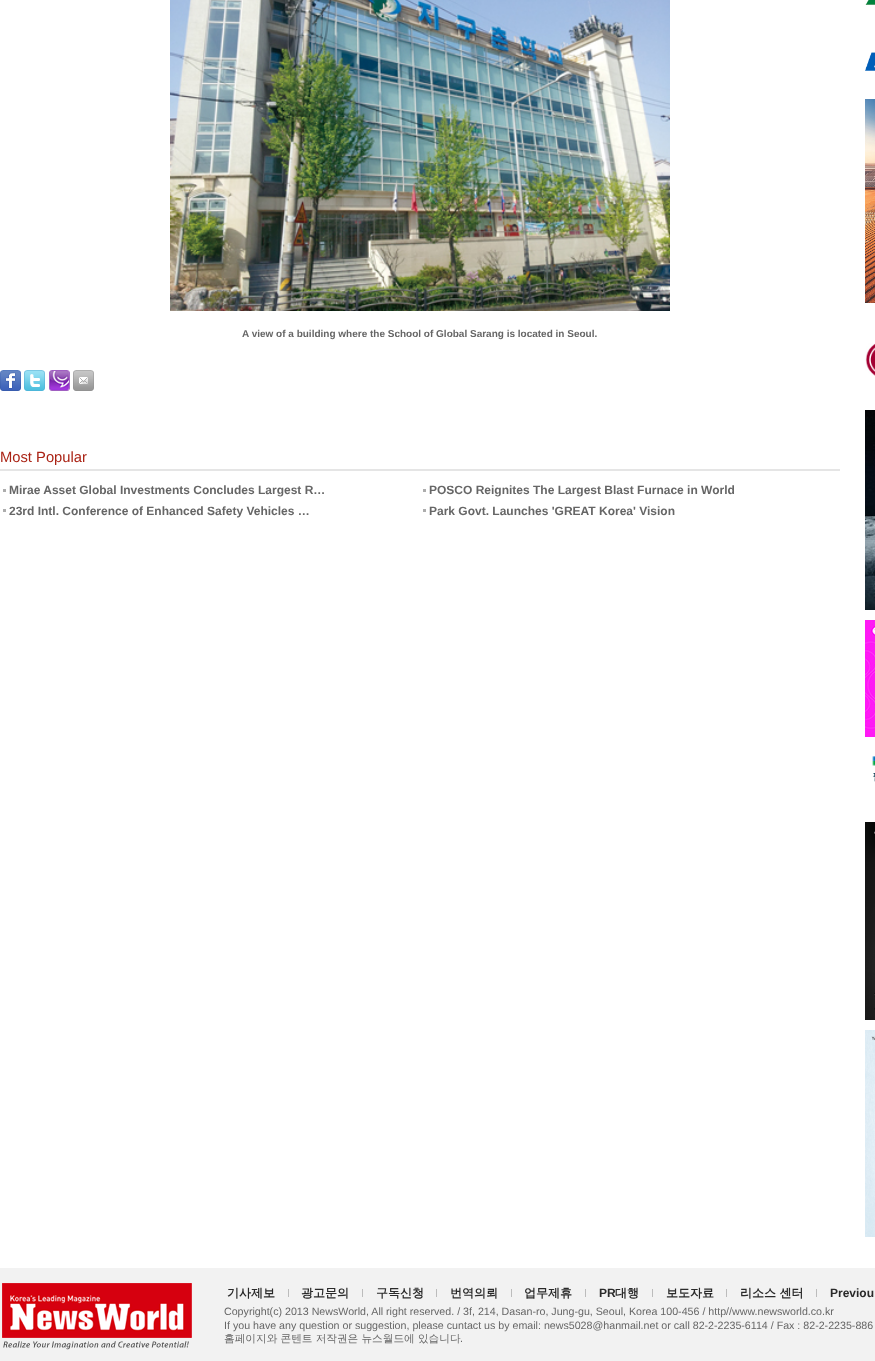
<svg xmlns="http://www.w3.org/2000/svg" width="875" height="1361">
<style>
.a{font:bold 10px Liberation Sans;fill:#666}
.b{font:14.75px Liberation Sans;fill:#aa2315}
.c{font:bold 12px Liberation Sans;fill:#666}
.d{font:bold 12px WenQuanYi Zen Hei;fill:#2a2a2a}
.e{font:bold 12px Liberation Sans;fill:#2a2a2a}
.f{font:10.67px Liberation Sans;fill:#666}
.g{font:500 10.67px WenQuanYi Zen Hei;fill:#666}
</style>
<rect width="100%" height="100%" fill="#fff"/>
<image href="1.png" x="170" y="0" width="500" height="311"/>
<image href="2.png" x="0" y="370" width="21" height="21"/>
<image href="3.png" x="24" y="370" width="21" height="21"/>
<image href="4.png" x="49" y="370" width="21" height="21"/>
<image href="5.png" x="73" y="370" width="21" height="21"/>
<path fill="#e5e5e5" d="M0 469h840v2H0z"/>
<path fill="#adadad" d="M3 489h3v3H3z"/>
<path fill="#adadad" d="M423 489h3v3H423z"/>
<path fill="#adadad" d="M3 509h3v3H3z"/>
<path fill="#adadad" d="M423 509h3v3H423z"/>
<image href="6.png" x="865" y="0" width="10" height="5"/>
<image href="7.png" x="865" y="52" width="10" height="19"/>
<image href="8.png" x="865" y="99" width="10" height="204"/>
<image href="9.png" x="865" y="343" width="10" height="33"/>
<image href="10.png" x="865" y="410" width="10" height="200"/>
<image href="11.png" x="865" y="620" width="10" height="117"/>
<image href="12.png" x="872" y="756" width="3" height="26"/>
<image href="13.png" x="865" y="822" width="10" height="198"/>
<image href="14.png" x="865" y="1030" width="10" height="207"/>
<path fill="#f2f2f2" d="M0 1268h875v93H0z"/>
<image href="15.png" x="2" y="1283" width="190" height="67"/>
<path fill="#bcbcbc" d="M288 1289h1v8H288z"/>
<path fill="#bcbcbc" d="M362 1289h1v8H362z"/>
<path fill="#bcbcbc" d="M436 1289h1v8H436z"/>
<path fill="#bcbcbc" d="M511 1289h1v8H511z"/>
<path fill="#bcbcbc" d="M585 1289h1v8H585z"/>
<path fill="#bcbcbc" d="M652 1289h1v8H652z"/>
<path fill="#bcbcbc" d="M726 1289h1v8H726z"/>
<path fill="#bcbcbc" d="M816 1289h1v8H816z"/>
<text class="a" x="242" y="337">A view of a building where the School of Global Sarang is located in Seoul.</text>
<text class="b" x="0" y="462">Most Popular</text>
<text class="c" x="9" y="494">Mirae Asset Global Investments Concludes Largest R…</text>
<text class="c" x="429" y="494">POSCO Reignites The Largest Blast Furnace in World</text>
<text class="c" x="9" y="515">23rd Intl. Conference of Enhanced Safety Vehicles …</text>
<text class="c" x="429" y="515">Park Govt. Launches 'GREAT Korea' Vision</text>
<text class="d" x="227" y="1297">기사제보</text>
<text class="d" x="301" y="1297">광고문의</text>
<text class="d" x="376" y="1297">구독신청</text>
<text class="d" x="450" y="1297">번역의뢰</text>
<text class="d" x="524" y="1297">업무제휴</text>
<text class="e" x="599" y="1297">PR</text>
<text class="d" x="615" y="1297">대행</text>
<text class="d" x="666" y="1297">보도자료</text>
<text class="d" x="740" y="1297">리소스 센터</text>
<text class="e" x="830" y="1297">Previou</text>
<text class="f" x="224" y="1315">Copyright(c) 2013 NewsWorld, All right reserved. / 3f, 214, Dasan-ro, Jung-gu, Seoul, Korea 100-456 / http//www.newsworld.co.kr</text>
<text class="f" x="224" y="1329">If you have any question or suggestion, please cuntact us by email: news5028@hanmail.net or call 82-2-2235-6114 / Fax : 82-2-2235-886</text>
<text class="g" x="224" y="1342">홈페이지와 콘텐트 저작권은 뉴스월드에 있습니다</text>
<text class="f" x="460" y="1342">.</text>
</svg>
